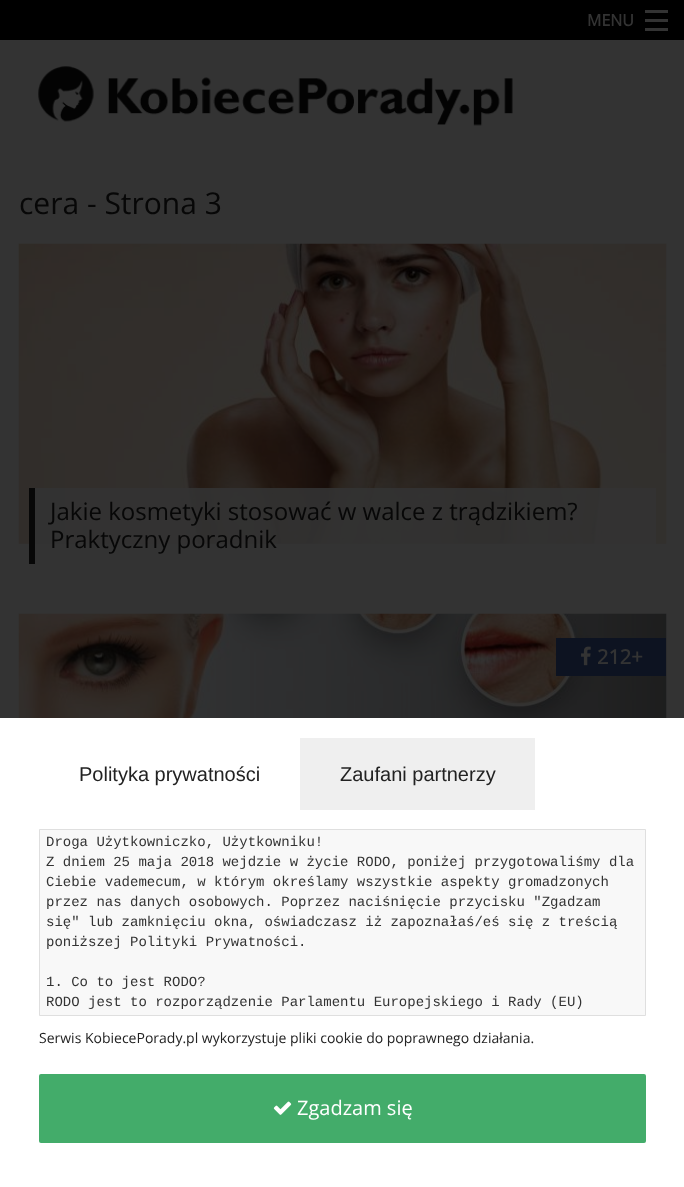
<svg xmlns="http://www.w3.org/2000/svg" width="684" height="1187">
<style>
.a{font:bold 16px Open Sans;fill:#333}
.b{font:30px Open Sans;fill:#070707}
.c{font:24px Open Sans;fill:#070707}
.d{font:bold 20px Open Sans;fill:#333}
.e{font:20px Liberation Sans;fill:#222}
.f{font:14px Liberation Mono;fill:#333}
.g{font:14px Open Sans;fill:#222}
.h{font:20px Open Sans;fill:#fff}
</style>
<rect width="100%" height="100%" fill="#333"/>
<path fill="#000" d="M0 0h684v40H0z"/>
<path fill="#333" d="M645 28h23v3H645z"/>
<path fill="#333" d="M645 19h23v3H645z"/>
<path fill="#333" d="M645 10h23v3H645z"/>
<image href="1.png" x="38" y="66" width="475" height="60"/>
<image href="2.png" x="18" y="243" width="649" height="301"/>
<path fill="#333333e6" d="M35 488h621v56H35z"/>
<path fill="#070707" d="M29 488h6v76H29z"/>
<image href="3.png" x="18" y="613" width="649" height="105"/>
<path fill="#0d1321" d="M556 638h110v38H556z"/>
<image href="4.png" x="581" y="646" width="10" height="20"/>
<path fill="#fff" d="M0 718h684v469H0z"/>
<path fill="#efefef" d="M300 738h235v72H300z"/>
<path fill="#f8f8f8" stroke="#dfdfdf" d="M39.5 829.5h606v186H39.5z"/>
<rect fill="#43ac6a" x="39" y="1074" width="607" height="69" rx="2"/>
<image href="5.png" x="273" y="1101" width="19" height="14"/>
<text class="a" x="587" y="26">MENU</text>
<text class="b" x="19" y="214">cera - Strona 3</text>
<text class="c" x="50" y="520">Jakie kosmetyki stosować w walce z trądzikiem?</text>
<text class="c" x="50" y="548">Praktyczny poradnik</text>
<text class="d" x="597" y="664">212+</text>
<text class="e" x="79" y="781">Polityka prywatności</text>
<text class="e" x="340" y="781">Zaufani partnerzy</text>
<text class="f" x="46" y="846">Droga Użytkowniczko, Użytkowniku!</text>
<text class="f" x="46" y="866">Z dniem 25 maja 2018 wejdzie w życie RODO, poniżej przygotowaliśmy dla</text>
<text class="f" x="46" y="886">Ciebie vademecum, w którym określamy wszystkie aspekty gromadzonych</text>
<text class="f" x="46" y="906">przez nas danych osobowych. Poprzez naciśnięcie przycisku "Zgadzam</text>
<text class="f" x="46" y="926">się" lub zamknięciu okna, oświadczasz iż zapoznałaś/eś się z treścią</text>
<text class="f" x="46" y="946">poniższej Polityki Prywatności.</text>
<text class="f" x="46" y="986">1. Co to jest RODO?</text>
<text class="f" x="46" y="1006">RODO jest to rozporządzenie Parlamentu Europejskiego i Rady (EU)</text>
<text class="g" x="39" y="1043">Serwis KobiecePorady.pl wykorzystuje pliki cookie do poprawnego działania.</text>
<text class="h" x="297" y="1115">Zgadzam się</text>
</svg>
